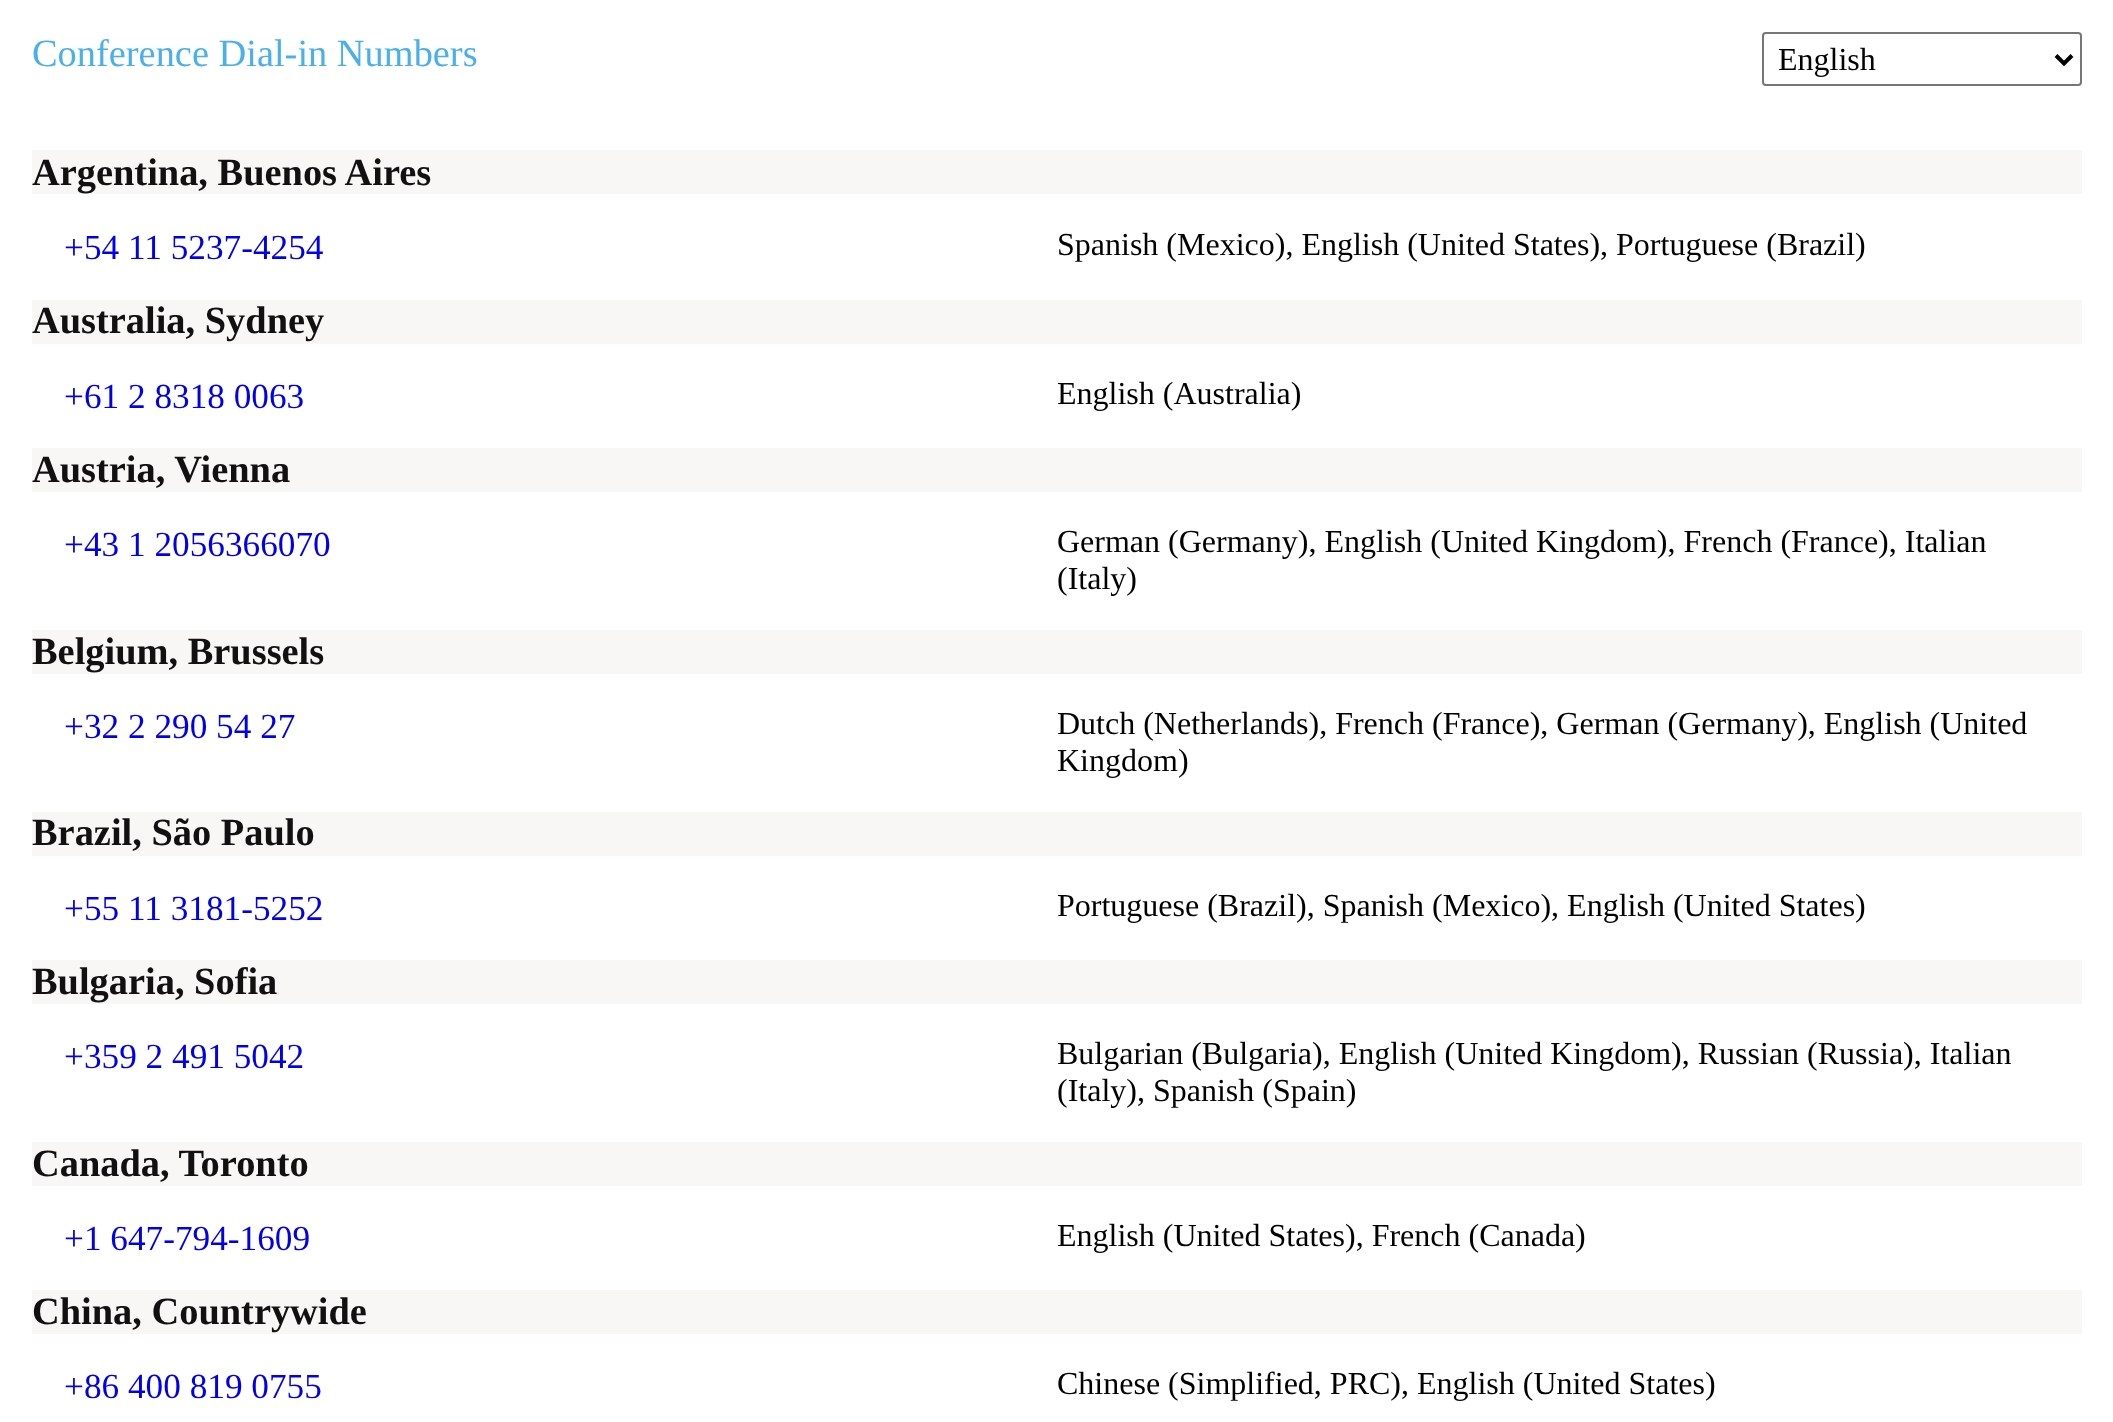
<svg xmlns="http://www.w3.org/2000/svg" width="2113" height="1422">
<style>
.a{font:38.4px Liberation Serif;fill:#49b0ea}
.b{font:32px Liberation Serif;fill:#000}
.c{font:bold 38.4px Liberation Serif;fill:#121010}
.d{font:35.25px Liberation Serif;fill:#00e}
</style>
<rect width="100%" height="100%" fill="#fff"/>
<rect fill="none" stroke="#767676" stroke-width="2" x="1763" y="33" width="318" height="52" rx="3"/>
<path fill="none" stroke="#000" stroke-width="4" d="M2056 55.5l8 8l8-8"/>
<path fill="#f9f6f6" d="M32 150h2050v44H32z"/>
<path fill="#f9f6f6" d="M32 300h2050v44H32z"/>
<path fill="#f9f6f6" d="M32 448h2050v44H32z"/>
<path fill="#f9f6f6" d="M32 630h2050v44H32z"/>
<path fill="#f9f6f6" d="M32 812h2050v44H32z"/>
<path fill="#f9f6f6" d="M32 960h2050v44H32z"/>
<path fill="#f9f6f6" d="M32 1142h2050v44H32z"/>
<path fill="#f9f6f6" d="M32 1290h2050v44H32z"/>
<text class="a" x="32" y="66">Conference Dial-in Numbers</text>
<text class="b" x="1778" y="70">English</text>
<text class="c" x="32" y="185">Argentina, Buenos Aires</text>
<text class="d" x="64" y="259">+54 11 5237-4254</text>
<text class="b" x="1057" y="255">Spanish (Mexico), English (United States), Portuguese (Brazil)</text>
<text class="c" x="32" y="333">Australia, Sydney</text>
<text class="d" x="64" y="408">+61 2 8318 0063</text>
<text class="b" x="1057" y="404">English (Australia)</text>
<text class="c" x="32" y="482">Austria, Vienna</text>
<text class="d" x="64" y="556">+43 1 2056366070</text>
<text class="b" x="1057" y="552">German (Germany), English (United Kingdom), French (France), Italian</text>
<text class="b" x="1057" y="589">(Italy)</text>
<text class="c" x="32" y="664">Belgium, Brussels</text>
<text class="d" x="64" y="738">+32 2 290 54 27</text>
<text class="b" x="1057" y="734">Dutch (Netherlands), French (France), German (Germany), English (United</text>
<text class="b" x="1057" y="771">Kingdom)</text>
<text class="c" x="32" y="845">Brazil, São Paulo</text>
<text class="d" x="64" y="920">+55 11 3181-5252</text>
<text class="b" x="1057" y="916">Portuguese (Brazil), Spanish (Mexico), English (United States)</text>
<text class="c" x="32" y="994">Bulgaria, Sofia</text>
<text class="d" x="64" y="1068">+359 2 491 5042</text>
<text class="b" x="1057" y="1064">Bulgarian (Bulgaria), English (United Kingdom), Russian (Russia), Italian</text>
<text class="b" x="1057" y="1101">(Italy), Spanish (Spain)</text>
<text class="c" x="32" y="1176">Canada, Toronto</text>
<text class="d" x="64" y="1250">+1 647-794-1609</text>
<text class="b" x="1057" y="1246">English (United States), French (Canada)</text>
<text class="c" x="32" y="1324">China, Countrywide</text>
<text class="d" x="64" y="1398">+86 400 819 0755</text>
<text class="b" x="1057" y="1394">Chinese (Simplified, PRC), English (United States)</text>
</svg>
